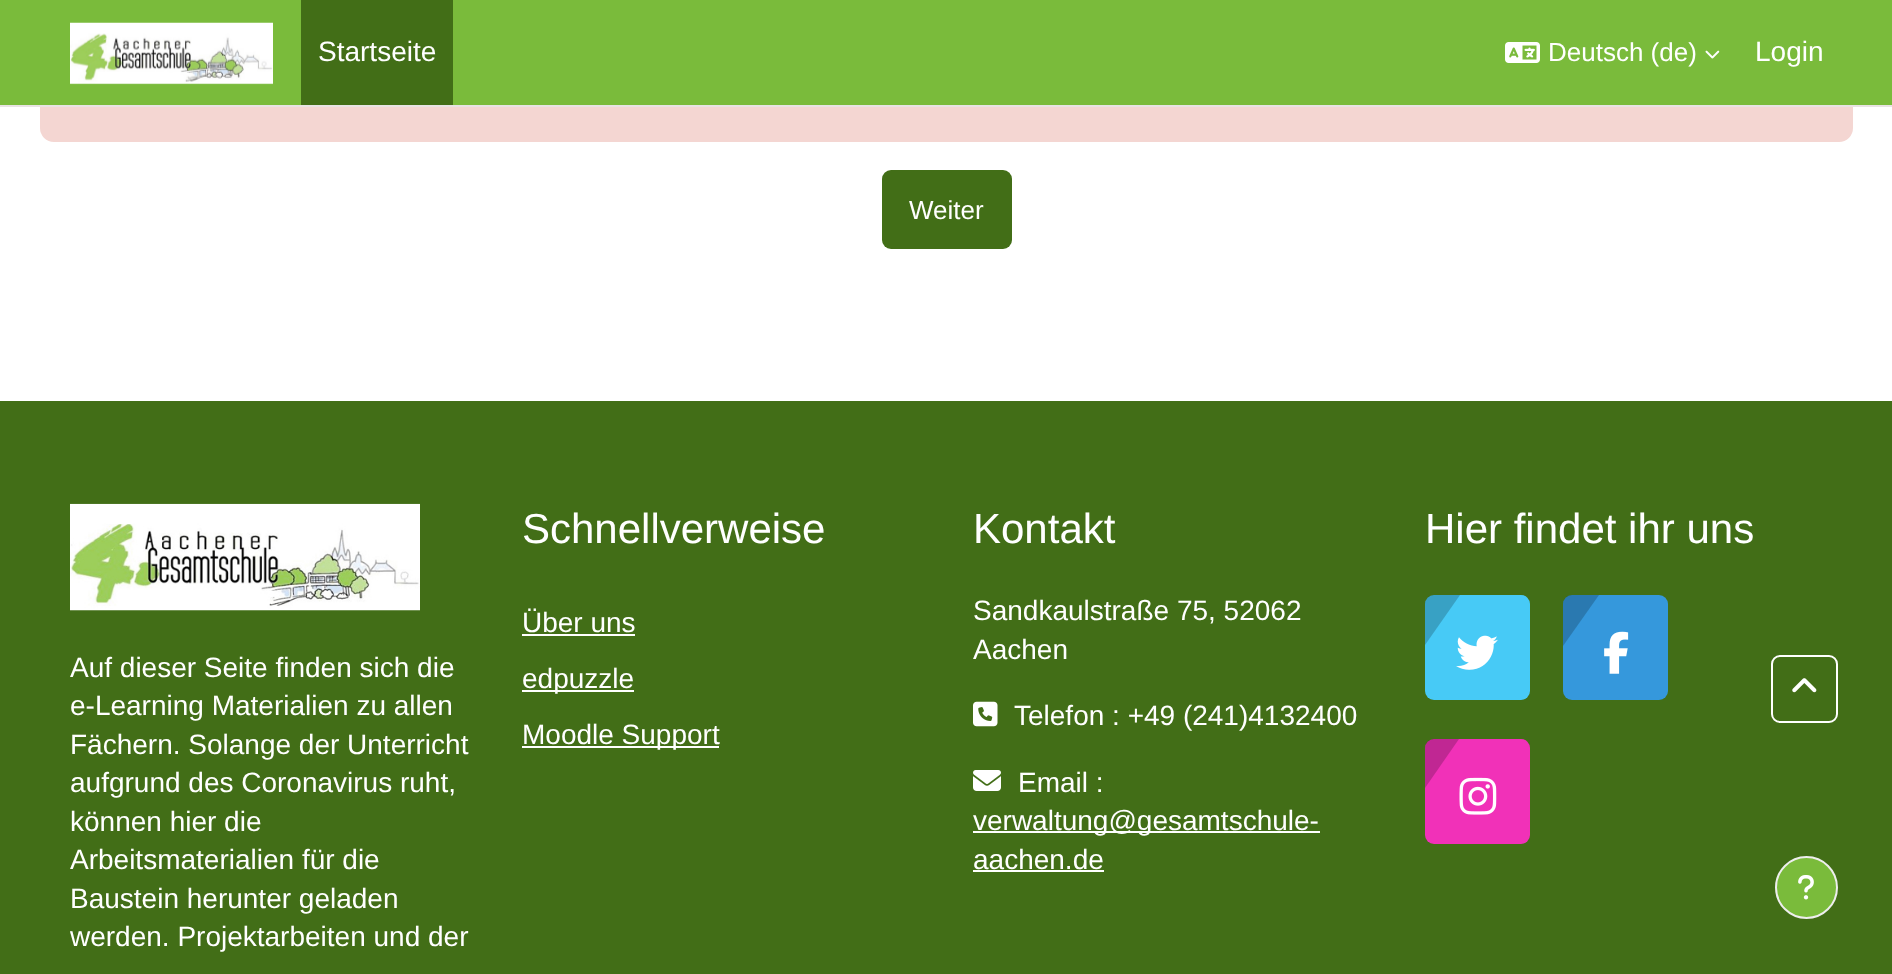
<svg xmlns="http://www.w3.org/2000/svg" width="1892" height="974">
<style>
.a{font:28px Liberation Sans;fill:#fff}
.b{font:26px Liberation Sans;fill:#fff}
.c{font:42px Liberation Sans;fill:#fff}
</style>
<rect width="100%" height="100%" fill="#fff"/>
<rect fill="#f4d6d2" x="40" y="-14" width="1813" height="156" rx="14"/>
<path fill="#7abb3b" d="M0 0h1892v105H0z"/>
<path fill="#e8e3e3" d="M0 105h1892v2H0z"/>
<image href="1.png" x="70" y="22" width="203" height="63"/>
<path fill="#426e17" d="M301 0h152v105H301z"/>
<image href="2.png" x="1505" y="42" width="35" height="21"/>
<image href="3.png" x="1705" y="50" width="15" height="9"/>
<rect fill="#426e17" x="882" y="170" width="130" height="79" rx="9"/>
<path fill="#426e17" d="M0 401h1892v573H0z"/>
<path fill="#fff" d="M522 634h113v2H522z"/>
<path fill="#fff" d="M522 690h112v2H522z"/>
<path fill="#fff" d="M522 746h197v2H522z"/>
<image href="4.png" x="973" y="701" width="25" height="26"/>
<image href="5.png" x="973" y="770" width="28" height="21"/>
<path fill="#fff" d="M973 831h347v2H973z"/>
<path fill="#fff" d="M973 870h131v2H973z"/>
<rect fill="#47caf6" x="1425" y="595" width="105" height="105" rx="9"/>
<image href="6.png" x="1456" y="635" width="42" height="35"/>
<path fill="#00000033" d="M1434 595h26l-35 50v-41c0-5 4-9 9-9z"/>
<rect fill="#3598dc" x="1563" y="595" width="105" height="105" rx="9"/>
<image href="7.png" x="1604" y="631" width="25" height="43"/>
<path fill="#00000033" d="M1572 595h27l-36 51v-42c0-5 4-9 9-9z"/>
<rect fill="#f131b8" x="1425" y="739" width="105" height="105" rx="9"/>
<image href="8.png" x="1459" y="777" width="38" height="38"/>
<path fill="#00000033" d="M1434 739h25l-34 49v-40c0-5 4-9 9-9z"/>
<image href="9.png" x="70" y="503" width="350" height="108"/>
<circle fill="#7abb3b" stroke="#eee" stroke-width="2" cx="1806.5" cy="887.5" r="30.5"/>
<image href="10.png" x="1798" y="875" width="16" height="25"/>
<rect fill="none" stroke="#fff" stroke-width="2" x="1772" y="656" width="65" height="66" rx="8"/>
<image href="11.png" x="1792" y="678" width="25" height="15"/>
<text class="a" x="318" y="61">Startseite</text>
<text class="b" x="1548" y="61">Deutsch (de)</text>
<text class="a" x="1755" y="61">Login</text>
<text class="b" x="909" y="219">Weiter</text>
<text class="c" x="522" y="543">Schnellverweise</text>
<text class="a" x="522" y="632">Über uns</text>
<text class="a" x="522" y="688">edpuzzle</text>
<text class="a" x="522" y="744">Moodle Support</text>
<text class="c" x="973" y="543">Kontakt</text>
<text class="a" x="973" y="620">Sandkaulstraße 75, 52062</text>
<text class="a" x="973" y="659">Aachen</text>
<text class="a" x="1014" y="725">Telefon : +49 (241)4132400</text>
<text class="a" x="1018" y="792">Email :</text>
<text class="a" x="973" y="830">verwaltung@gesamtschule-</text>
<text class="a" x="973" y="869">aachen.de</text>
<text class="c" x="1425" y="543">Hier findet ihr uns</text>
<text class="a" x="70" y="677">Auf dieser Seite finden sich die</text>
<text class="a" x="70" y="715">e-Learning Materialien zu allen</text>
<text class="a" x="70" y="754">Fächern. Solange der Unterricht</text>
<text class="a" x="70" y="792">aufgrund des Coronavirus ruht,</text>
<text class="a" x="70" y="831">können hier die</text>
<text class="a" x="70" y="869">Arbeitsmaterialien für die</text>
<text class="a" x="70" y="908">Baustein herunter geladen</text>
<text class="a" x="70" y="946">werden. Projektarbeiten und der</text>
</svg>
